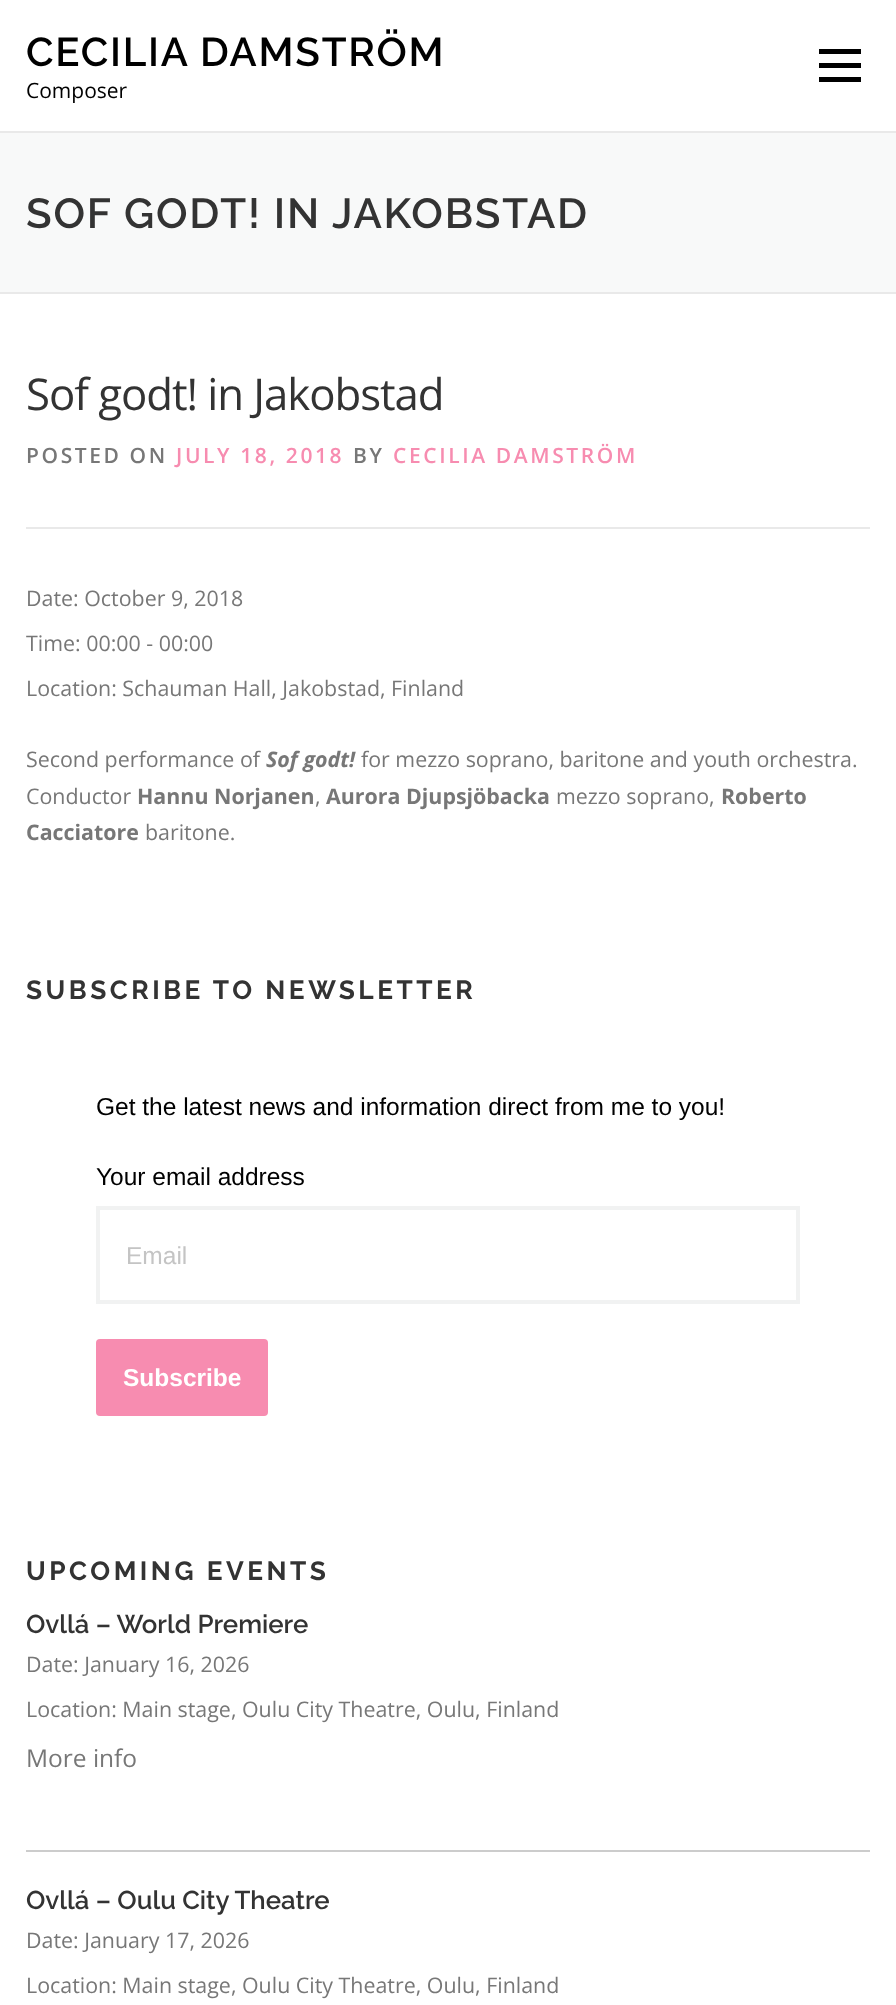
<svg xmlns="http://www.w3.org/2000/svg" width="896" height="2005">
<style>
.a{font:600 40.25px Raleway;letter-spacing:1.75px;fill:#000}
.b{font:21px Open Sans;fill:#000}
.c{font:600 42px Raleway;letter-spacing:1.75px;fill:#333}
.d{font:43.75px Open Sans;letter-spacing:-1.05px;fill:#333}
.e{font:600 21px Open Sans;letter-spacing:2.6px;fill:#777}
.f{font:600 21px Open Sans;letter-spacing:2.6px;fill:#f78cb0}
.g{font:21.4px Open Sans;fill:#777}
.h{font:italic bold 21.4px Open Sans;fill:#777}
.i{font:bold 21.4px Open Sans;fill:#777}
.j{font:bold 26.25px Raleway;letter-spacing:3.5px;fill:#333}
.k{font:24.5px Liberation Sans;fill:#000}
.l{font:24.5px Liberation Sans;fill:#c4c4c4}
.m{font:bold 24.5px Liberation Sans;fill:#fff}
.n{font:600 25.75px Raleway;fill:#333}
.o{font:24.5px Open Sans;fill:#777}
</style>
<rect width="100%" height="100%" fill="#fff"/>
<path fill="#000" d="M819 63h42v5H819z"/>
<path fill="#000" d="M819 49h42v5H819z"/>
<path fill="#000" d="M819 77h42v5H819z"/>
<path fill="#f8f9f9" d="M0 133h896v159H0z"/>
<path fill="#e9e9e9" d="M0 131h896v2H0z"/>
<path fill="#e9e9e9" d="M0 292h896v2H0z"/>
<path fill="#e9e9e9" d="M26 527h844v2H26z"/>
<path fill="none" stroke="#f1f2f2" stroke-width="4" d="M98 1208h700v94H98z"/>
<rect fill="#f78cb0" x="96" y="1339" width="172" height="77" rx="4"/>
<path fill="#ccc" d="M26 1850h844v2H26z"/>
<text class="a" x="26" y="66">CECILIA DAMSTRÖM</text>
<text class="b" x="26" y="98">Composer</text>
<text class="c" x="26" y="228">SOF GODT! IN JAKOBSTAD</text>
<text class="d" x="26" y="410">Sof godt! in Jakobstad</text>
<text class="e" x="26" y="463">POSTED ON</text>
<text class="f" x="176" y="463">JULY 18, 2018</text>
<text class="e" x="353" y="463">BY</text>
<text class="f" x="393" y="463">CECILIA DAMSTRÖM</text>
<text class="g" x="26" y="606">Date: October 9, 2018</text>
<text class="g" x="26" y="651">Time: 00:00 - 00:00</text>
<text class="g" x="26" y="696">Location: Schauman Hall, Jakobstad, Finland</text>
<text class="g" x="26" y="767">Second performance of</text>
<text class="h" x="266" y="767">Sof godt!</text>
<text class="g" x="361" y="767">for mezzo soprano, baritone and youth orchestra.</text>
<text class="g" x="26" y="804">Conductor</text>
<text class="i" x="137" y="804">Hannu Norjanen</text>
<text class="g" x="315" y="804">,</text>
<text class="i" x="326" y="804">Aurora Djupsjöbacka</text>
<text class="g" x="556" y="804">mezzo soprano,</text>
<text class="i" x="721" y="804">Roberto</text>
<text class="i" x="26" y="840">Cacciatore</text>
<text class="g" x="145" y="840">baritone.</text>
<text class="j" x="26" y="999">SUBSCRIBE TO NEWSLETTER</text>
<text class="k" x="96" y="1115">Get the latest news and information direct from me to you!</text>
<text class="k" x="96" y="1185">Your email address</text>
<text class="l" x="126" y="1264">Email</text>
<text class="m" x="123" y="1386">Subscribe</text>
<text class="j" x="26" y="1580">UPCOMING EVENTS</text>
<text class="n" x="26" y="1633">Ovllá – World Premiere</text>
<text class="g" x="26" y="1672">Date: January 16, 2026</text>
<text class="g" x="26" y="1717">Location: Main stage, Oulu City Theatre, Oulu, Finland</text>
<text class="o" x="26" y="1767">More info</text>
<text class="n" x="26" y="1909">Ovllá – Oulu City Theatre</text>
<text class="g" x="26" y="1948">Date: January 17, 2026</text>
<text class="g" x="26" y="1993">Location: Main stage, Oulu City Theatre, Oulu, Finland</text>
</svg>
